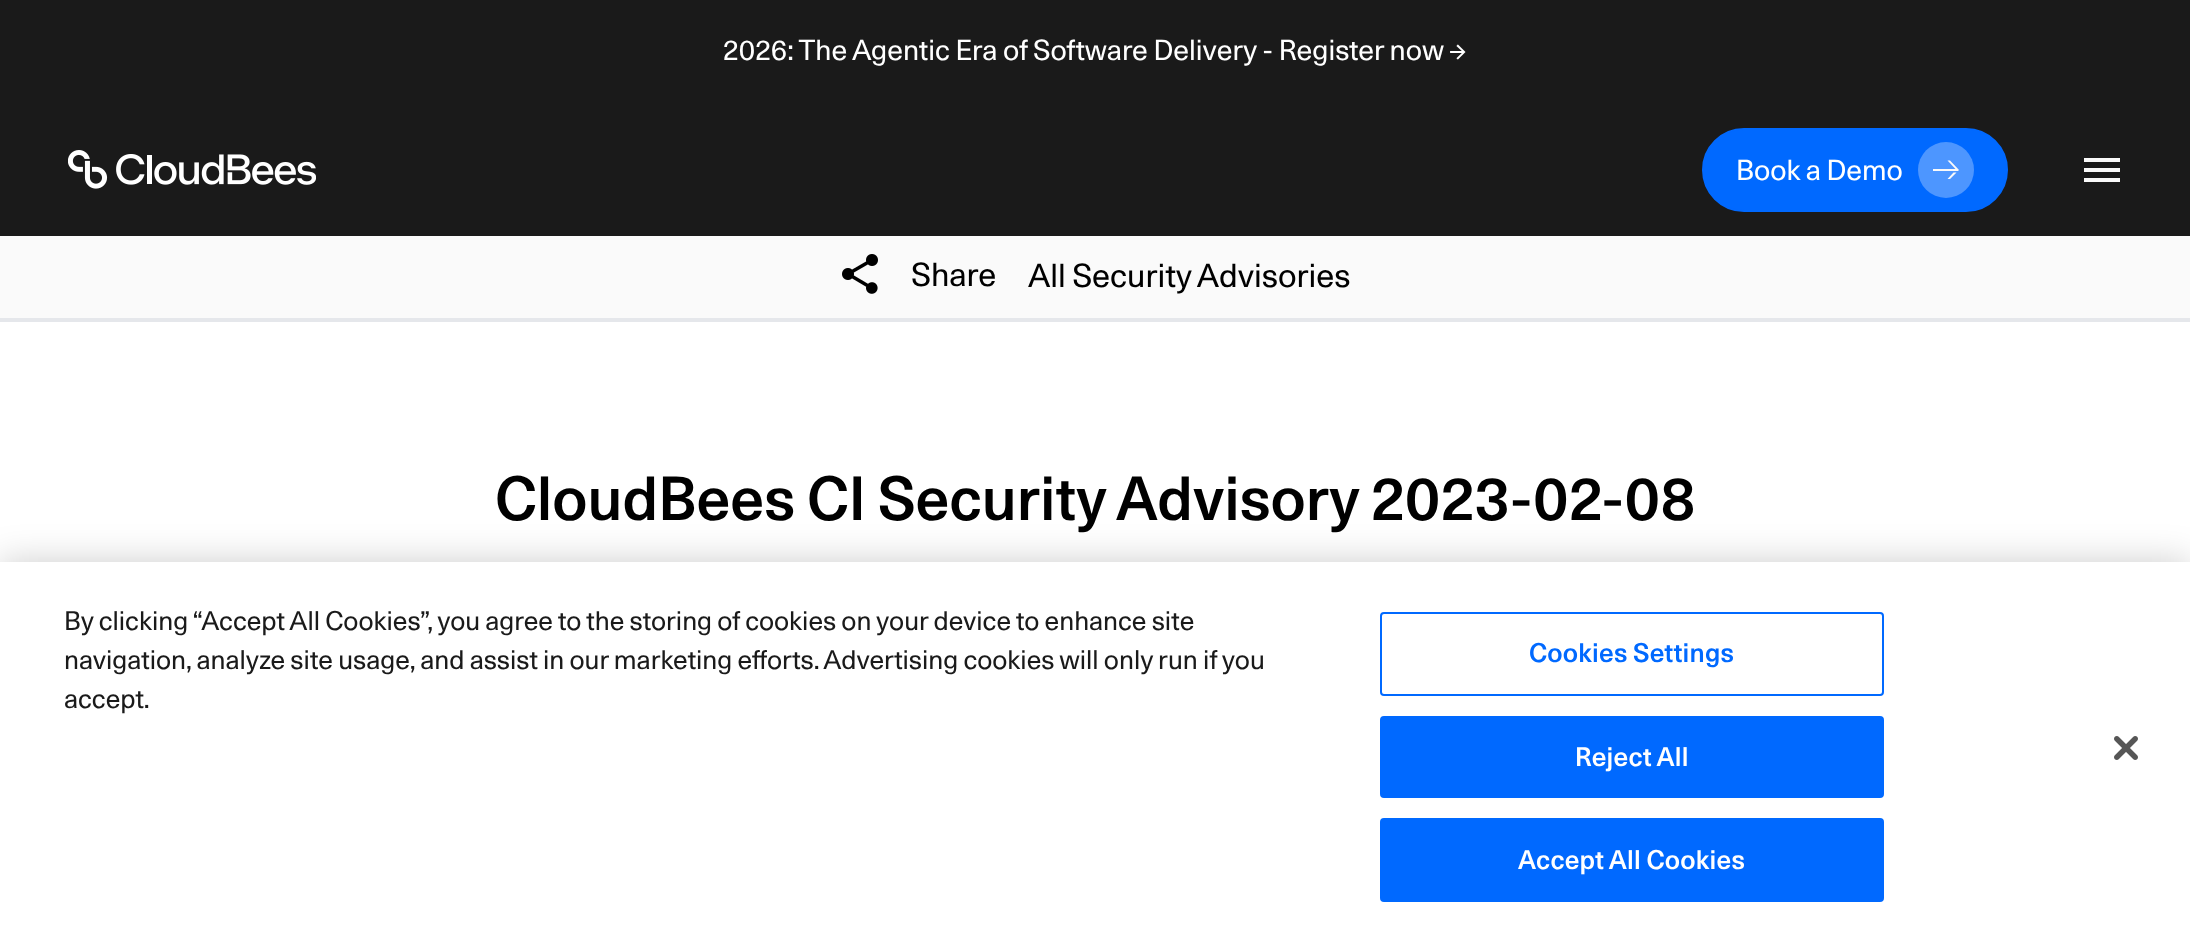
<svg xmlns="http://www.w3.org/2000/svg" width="2190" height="941">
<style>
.a{font:28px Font;fill:#fff}
.b{font:32px Font;fill:#000}
.c{font:500 60px Font;fill:#000}
.d{font:26px Font;fill:#1a1a1a}
.e{font:500 26px Font;letter-spacing:0.25px;fill:#0069ff}
.f{font:500 26px Font;letter-spacing:0.25px;fill:#fff}
</style>
<rect width="100%" height="100%" fill="#fff"/>
<path fill="#1a1a1a" d="M0 0h2190v236H0z"/>
<image href="1.png" x="68" y="150" width="248" height="39"/>
<rect fill="#0069ff" stroke="#0069ff" stroke-width="2" x="1703" y="129" width="304" height="82" rx="41"/>
<circle fill="#4d96ff" cx="1946" cy="170" r="28"/>
<path fill="#fafafa" d="M1953.5 172.5l-6 6.5h2.5l6.5-6.5zm4.5-1.5l1-1l-9-9.5h-2.5l8 8.5h-22.5v2z"/>
<path fill="#fafafa" d="M2084 182h36v-4h-36zm0-10h36v-4h-36zm0-14v4h36v-4z"/>
<path fill="#e5e7eb" d="M0 318h2190v4H0z"/>
<path fill="#fafafa" d="M0 236h2190v82H0z"/>
<image href="2.png" x="842" y="254" width="36" height="40"/>
<path fill="#00000033" filter="blur(18px)" d="M0 562h2190v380H0z"/>
<path fill="#fff" d="M0 562h2190v379H0z"/>
<rect fill="none" stroke="#0069ff" stroke-width="2" x="1381" y="613" width="502" height="82" rx="3"/>
<rect fill="#0069ff" stroke="#0069ff" stroke-width="2" x="1381" y="717" width="502" height="80" rx="3"/>
<rect fill="#0069ff" stroke="#0069ff" stroke-width="2" x="1381" y="819" width="502" height="82" rx="3"/>
<image href="3.png" x="2114" y="736" width="24" height="24"/>
<text class="a" x="723" y="60">2026: The Agentic Era of Software Delivery - Register now →</text>
<text class="a" x="1736" y="180">Book a Demo</text>
<text class="b" x="911" y="286">Share</text>
<text class="b" x="1028" y="287">All Security Advisories</text>
<text class="c" x="495" y="520">CloudBees CI Security Advisory 2023-02-08</text>
<text class="d" x="64" y="630">By clicking “Accept All Cookies”, you agree to the storing of cookies on your device to enhance site</text>
<text class="d" x="64" y="669">navigation, analyze site usage, and assist in our marketing efforts. Advertising cookies will only run if you</text>
<text class="d" x="64" y="708">accept.</text>
<text class="e" x="1529" y="662">Cookies Settings</text>
<text class="f" x="1575" y="766">Reject All</text>
<text class="f" x="1518" y="869">Accept All Cookies</text>
</svg>
